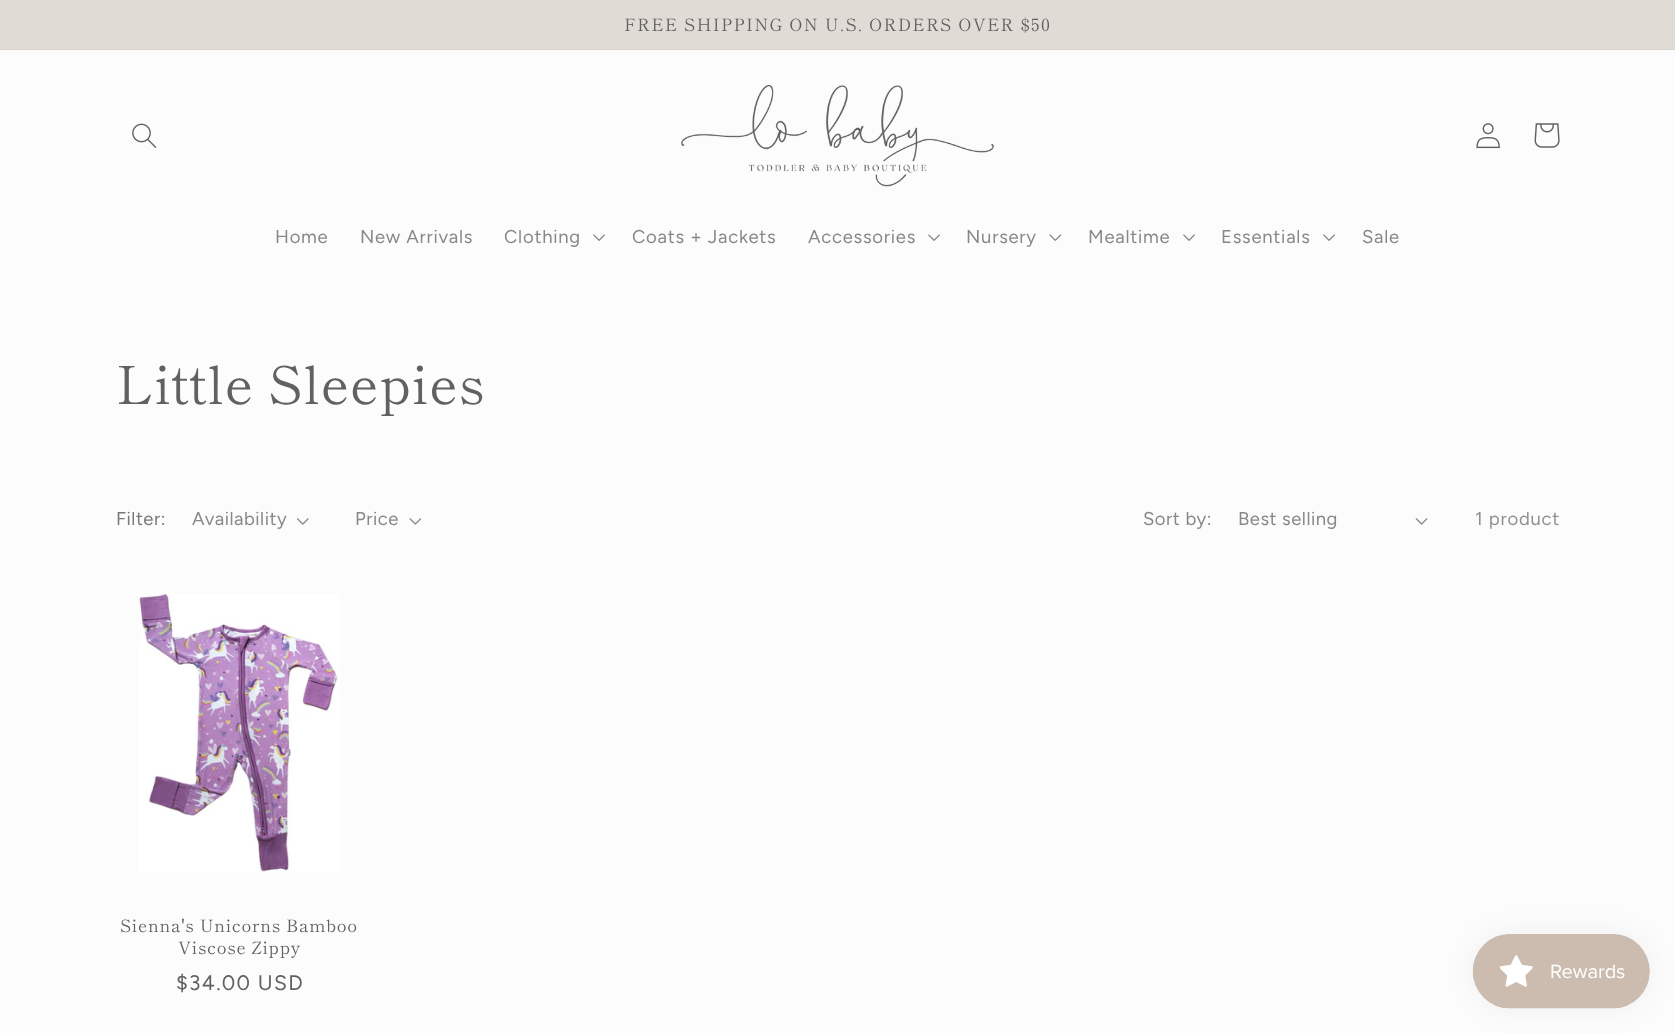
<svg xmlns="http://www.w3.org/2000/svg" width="1675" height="1033">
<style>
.a{font:17.05px Shippori Mincho;letter-spacing:1.3px;fill:#616161}
.b{font:18.5px Figtree;letter-spacing:0.75px;fill:#888}
.c{font:52.5px Shippori Mincho;letter-spacing:0.75px;fill:#616161}
.d{font:18.5px Figtree;letter-spacing:0.5px;fill:#787878}
.e{font:18.5px Figtree;letter-spacing:0.5px;fill:#888}
.f{font:18.5px Figtree;letter-spacing:0.75px;fill:#909090}
.g{font:17.05px Shippori Mincho;letter-spacing:0.75px;fill:#616161}
.h{font:21px Figtree;letter-spacing:1.3px;fill:#616161}
</style>
<rect width="100%" height="100%" fill="#fcfcfc"/>
<path fill="#e1dbd5" d="M0 0h1675v49H0z"/>
<path fill="#d7d1cc" d="M0 49h1675v1H0z"/>
<image href="1.png" x="132" y="123" width="25" height="25"/>
<image href="2.png" x="681" y="85" width="313" height="102"/>
<image href="3.png" x="1476" y="123" width="24" height="26"/>
<image href="4.png" x="1534" y="123" width="26" height="25"/>
<image href="5.png" x="593" y="234" width="12" height="7"/>
<image href="5.png" x="928" y="234" width="12" height="7"/>
<image href="6.png" x="1049" y="234" width="13" height="7"/>
<image href="5.png" x="1183" y="234" width="12" height="7"/>
<image href="5.png" x="1323" y="234" width="12" height="7"/>
<image href="7.png" x="297" y="518" width="12" height="7"/>
<image href="8.png" x="409" y="518" width="12" height="7"/>
<image href="9.png" x="1415" y="518" width="13" height="7"/>
<image href="10.png" x="139" y="594" width="201" height="278"/>
<rect fill="#0000000d" filter="blur(15.5px)" x="1473" y="934" width="177" height="75" rx="37.5"/>
<image href="11.png" x="1472" y="934" width="178" height="75"/>
<text class="a" x="624" y="31">FREE SHIPPING ON U.S. ORDERS OVER $50</text>
<text class="b" x="275" y="243">Home</text>
<text class="b" x="360" y="243">New Arrivals</text>
<text class="b" x="504" y="243">Clothing</text>
<text class="b" x="632" y="243">Coats + Jackets</text>
<text class="b" x="808" y="243">Accessories</text>
<text class="b" x="966" y="243">Nursery</text>
<text class="b" x="1088" y="243">Mealtime</text>
<text class="b" x="1221" y="243">Essentials</text>
<text class="b" x="1362" y="243">Sale</text>
<text class="c" x="116" y="404">Little Sleepies</text>
<text class="d" x="116" y="525">Filter:</text>
<text class="e" x="192" y="525">Availability</text>
<text class="e" x="355" y="525">Price</text>
<text class="e" x="1143" y="525">Sort by:</text>
<text class="e" x="1238" y="525">Best selling</text>
<text class="f" x="1475" y="525">1 product</text>
<text class="g" x="120" y="932">Sienna's Unicorns Bamboo</text>
<text class="g" x="178" y="954">Viscose Zippy</text>
<text class="h" x="176" y="990">$34.00 USD</text>
</svg>
